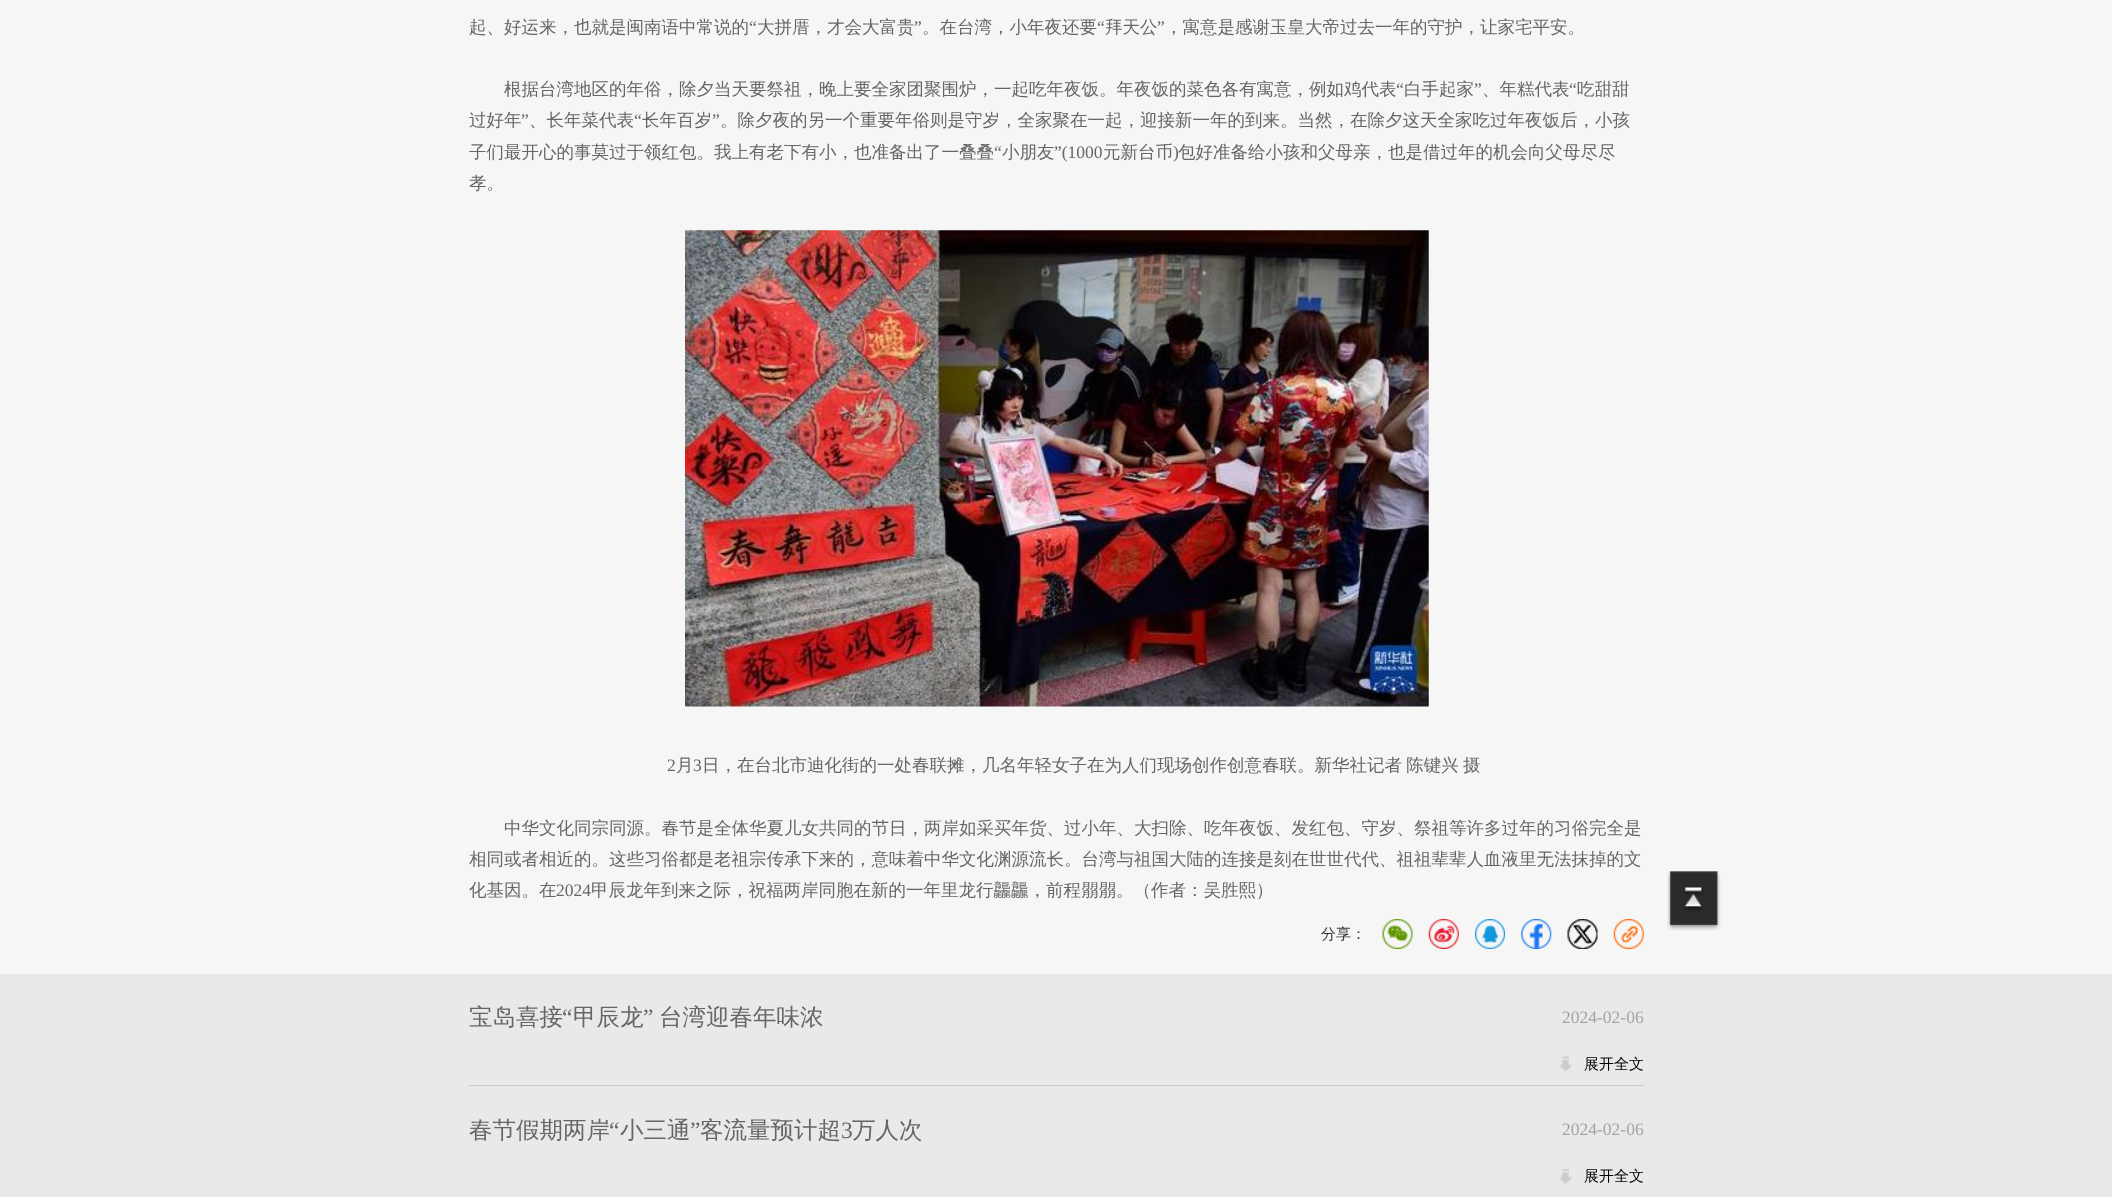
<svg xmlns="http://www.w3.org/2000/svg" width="2112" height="1197">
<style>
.a{font:500 17.5px WenQuanYi Zen Hei;fill:#666}
.b{font:17.5px Liberation Serif;fill:#666}
.c{font:500 15px WenQuanYi Zen Hei;fill:#333}
.d{font:500 23.5px WenQuanYi Zen Hei;fill:#666}
.e{font:23.5px Liberation Serif;fill:#666}
.f{font:17.5px Liberation Serif;fill:#a4a4a4}
.g{font:500 15px WenQuanYi Zen Hei;fill:#000}
</style>
<rect width="100%" height="100%" fill="#f6f6f6"/>
<image href="1.png" x="685" y="230" width="744" height="477"/>
<image href="2.png" x="1382" y="919" width="31" height="30"/>
<image href="3.png" x="1428" y="919" width="31" height="30"/>
<image href="4.png" x="1475" y="919" width="30" height="30"/>
<image href="5.png" x="1521" y="919" width="31" height="30"/>
<image href="6.png" x="1567" y="919" width="31" height="30"/>
<image href="7.png" x="1613" y="919" width="31" height="30"/>
<path fill="#e9e9e9" d="M0 974h2112v223H0z"/>
<path fill="#c9c9c9" d="M469 1085h1175v1H469z"/>
<image href="8.png" x="1559" y="1056" width="13" height="16"/>
<image href="9.png" x="1559" y="1169" width="13" height="15"/>
<image href="10.png" x="1667" y="871" width="54" height="60"/>
<text class="a" x="469" y="33">起、好运来，也就是闽南语中常说的</text>
<text class="b" x="749" y="33">“</text>
<text class="a" x="757" y="33">大拼厝，才会大富贵</text>
<text class="b" x="914" y="33">”</text>
<text class="a" x="922" y="33">。在台湾，小年夜还要</text>
<text class="b" x="1097" y="33">“</text>
<text class="a" x="1105" y="33">拜天公</text>
<text class="b" x="1157" y="33">”</text>
<text class="a" x="1165" y="33">，寓意是感谢玉皇大帝过去一年的守护，让家宅平安。</text>
<text class="a" x="504" y="95">根据台湾地区的年俗，除夕当天要祭祖，晚上要全家团聚围炉，一起吃年夜饭。年夜饭的菜色各有寓意，例如鸡代表</text>
<text class="b" x="1396" y="95">“</text>
<text class="a" x="1404" y="95">白手起家</text>
<text class="b" x="1474" y="95">”</text>
<text class="a" x="1482" y="95">、年糕代表</text>
<text class="b" x="1569" y="95">“</text>
<text class="a" x="1577" y="95">吃甜甜</text>
<text class="a" x="469" y="126">过好年</text>
<text class="b" x="521" y="126">”</text>
<text class="a" x="529" y="126">、长年菜代表</text>
<text class="b" x="634" y="126">“</text>
<text class="a" x="642" y="126">长年百岁</text>
<text class="b" x="712" y="126">”</text>
<text class="a" x="720" y="126">。除夕夜的另一个重要年俗则是守岁，全家聚在一起，迎接新一年的到来。当然，在除夕这天全家吃过年夜饭后，小孩</text>
<text class="a" x="469" y="158">子们最开心的事莫过于领红包。我上有老下有小，也准备出了一叠叠</text>
<text class="b" x="994" y="158">“</text>
<text class="a" x="1002" y="158">小朋友</text>
<text class="b" x="1054" y="158">”(1000</text>
<text class="a" x="1103" y="158">元新台币</text>
<text class="b" x="1173" y="158">)</text>
<text class="a" x="1178" y="158">包好准备给小孩和父母亲，也是借过年的机会向父母尽尽</text>
<text class="a" x="469" y="189">孝。</text>
<text class="b" x="667" y="771">2</text>
<text class="a" x="676" y="771">月</text>
<text class="b" x="693" y="771">3</text>
<text class="a" x="702" y="771" word-spacing="-1">日，在台北市迪化街的一处春联摊，几名年轻女子在为人们现场创作创意春联。新华社记者 陈键兴 摄</text>
<text class="a" x="504" y="834">中华文化同宗同源。春节是全体华夏儿女共同的节日，两岸如采买年货、过小年、大扫除、吃年夜饭、发红包、守岁、祭祖等许多过年的习俗完全是</text>
<text class="a" x="469" y="865">相同或者相近的。这些习俗都是老祖宗传承下来的，意味着中华文化渊源流长。台湾与祖国大陆的连接是刻在世世代代、祖祖辈辈人血液里无法抹掉的文</text>
<text class="a" x="469" y="896">化基因。在</text>
<text class="b" x="556" y="896">2024</text>
<text class="a" x="591" y="896">甲辰龙年到来之际，祝福两岸同胞在新的一年里龙行龘龘，前程朤朤。（作者：吴胜熙）</text>
<text class="c" x="1321" y="939">分享：</text>
<text class="d" x="469" y="1025">宝岛喜接</text>
<text class="e" x="562" y="1025">“</text>
<text class="d" x="573" y="1025">甲辰龙</text>
<text class="e" x="643" y="1025">”</text>
<text class="d" x="659" y="1025">台湾迎春年味浓</text>
<text class="f" x="1562" y="1023">2024-02-06</text>
<text class="g" x="1584" y="1069">展开全文</text>
<text class="d" x="469" y="1138">春节假期两岸</text>
<text class="e" x="609" y="1138">“</text>
<text class="d" x="620" y="1138">小三通</text>
<text class="e" x="690" y="1138">”</text>
<text class="d" x="700" y="1138">客流量预计超</text>
<text class="e" x="841" y="1138">3</text>
<text class="d" x="852" y="1138">万人次</text>
<text class="f" x="1562" y="1135">2024-02-06</text>
<text class="g" x="1584" y="1181">展开全文</text>
</svg>
